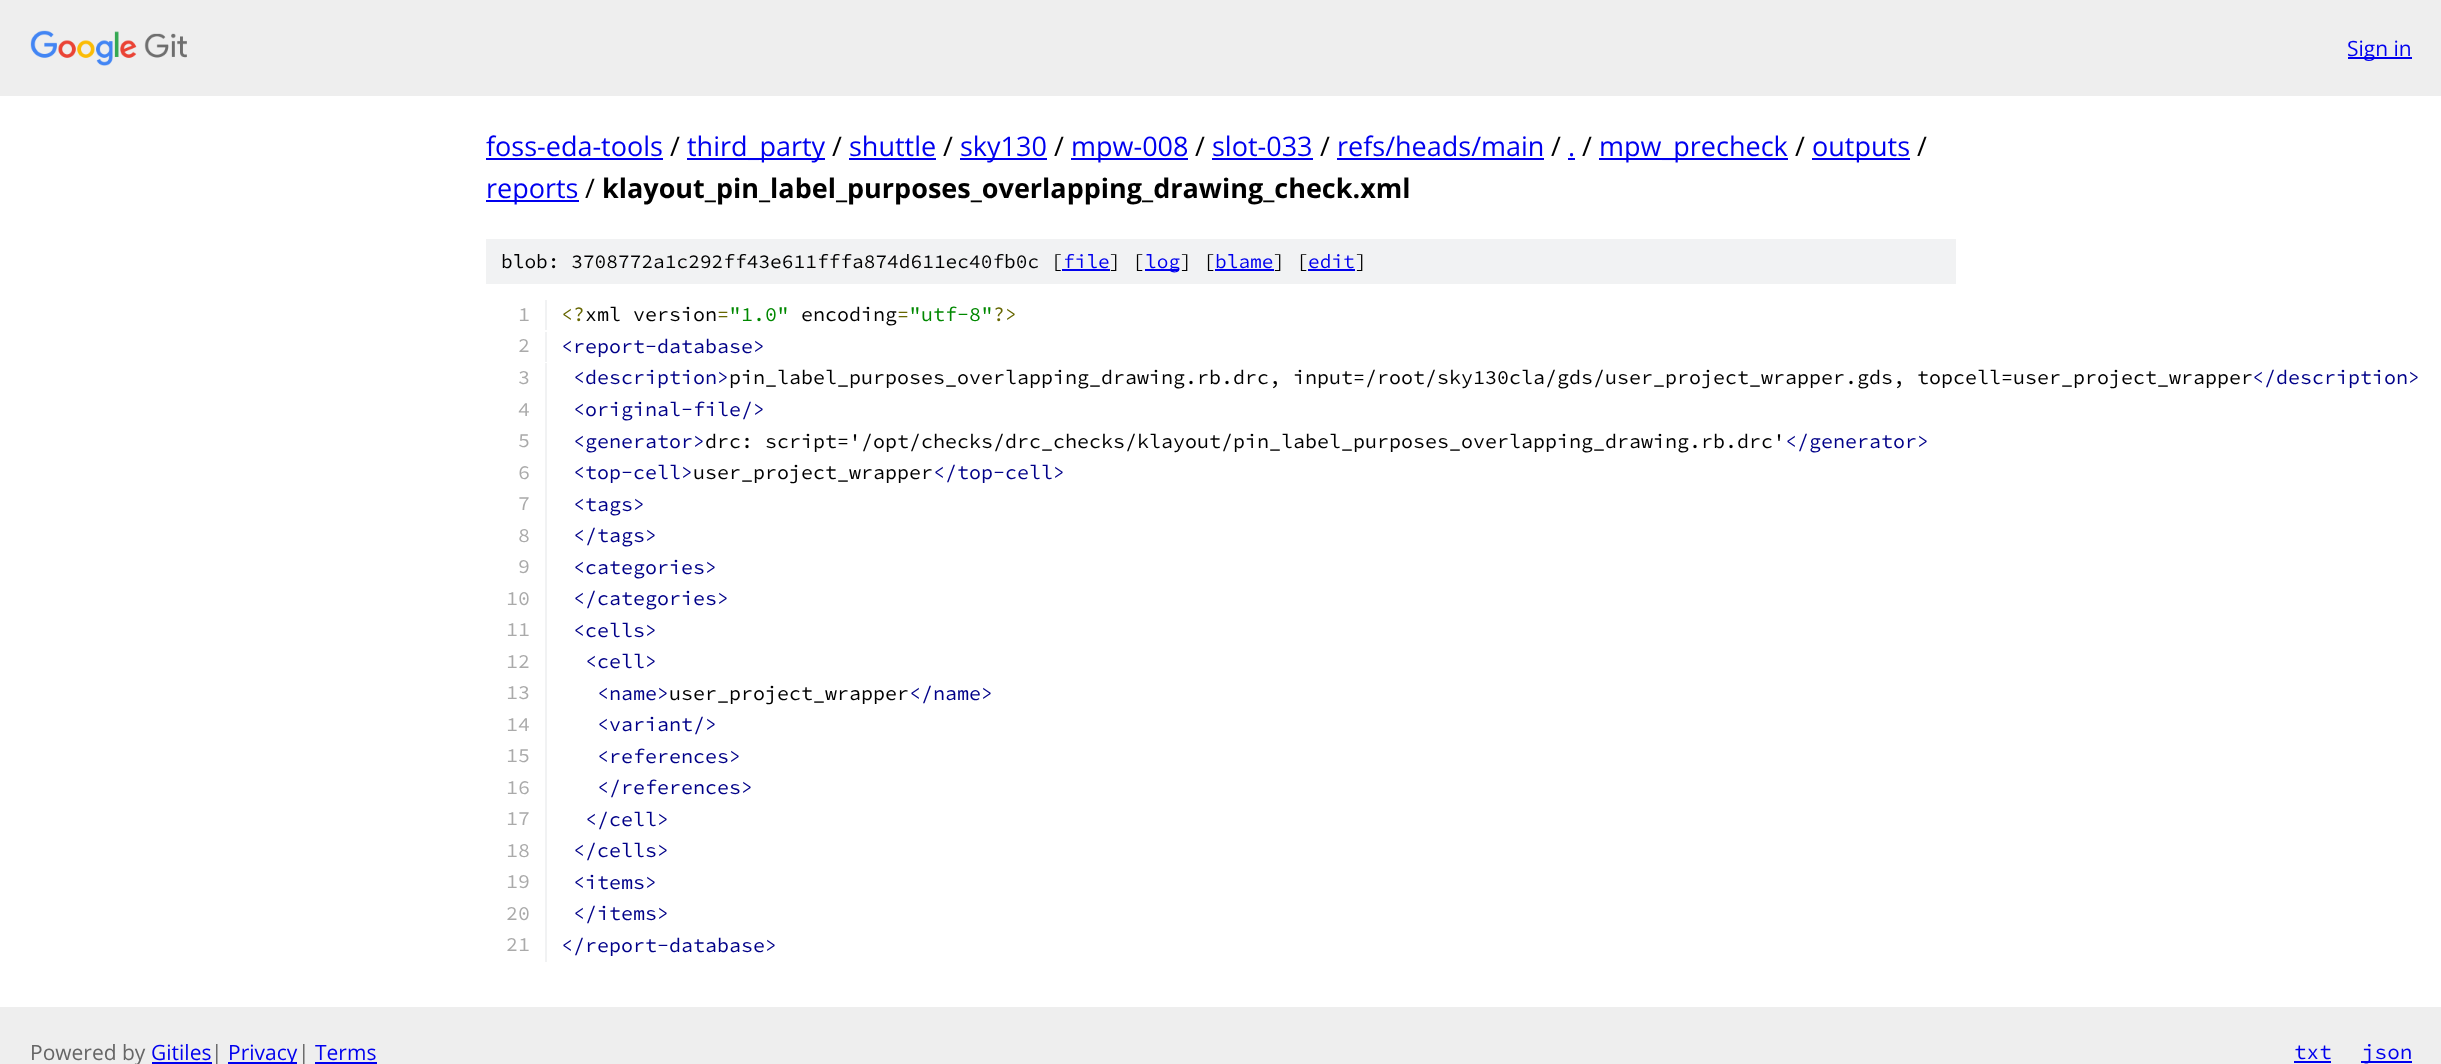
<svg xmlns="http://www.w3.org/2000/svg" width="2441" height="1064">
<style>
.a{font:21px Open Sans;fill:#00e}
.b{font:27px Open Sans;fill:#00e}
.c{font:27px Open Sans;fill:#000}
.d{font:bold 27px Open Sans;fill:#000}
.e{font:200 19.5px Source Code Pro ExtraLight;fill:#000}
.f{font:200 19.5px Source Code Pro ExtraLight;fill:#00e}
.g{font:200 20px Source Code Pro ExtraLight;fill:#aaa}
.h{font:200 20px Source Code Pro ExtraLight;fill:#660}
.i{font:200 20px Source Code Pro ExtraLight;fill:#000}
.j{font:200 20px Source Code Pro ExtraLight;fill:#080}
.k{font:200 20px Source Code Pro ExtraLight;fill:#008}
.l{font:21px Open Sans;fill:#666}
.m{font:200 21px Source Code Pro ExtraLight;fill:#00e}
</style>
<rect width="100%" height="100%" fill="#fff"/>
<path fill="#eee" d="M0 0h2441v96H0z"/>
<image href="1.png" x="30" y="30" width="157" height="36"/>
<path fill="#00e" d="M2348 57h64v2H2348z"/>
<path fill="#00e" d="M486 158h177v2H486z"/>
<path fill="#00e" d="M687 158h138v2H687z"/>
<path fill="#00e" d="M849 158h87v2H849z"/>
<path fill="#00e" d="M960 158h87v2H960z"/>
<path fill="#00e" d="M1071 158h117v2H1071z"/>
<path fill="#00e" d="M1212 158h101v2H1212z"/>
<path fill="#00e" d="M1337 158h207v2H1337z"/>
<path fill="#00e" d="M1568 158h7v2H1568z"/>
<path fill="#00e" d="M1599 158h189v2H1599z"/>
<path fill="#00e" d="M1812 158h98v2H1812z"/>
<path fill="#00e" d="M486 200h93v2H486z"/>
<path fill="#f1f2f3" d="M486 239h1470v45H486z"/>
<path fill="#00e" d="M1062 269h48v2H1062z"/>
<path fill="#00e" d="M1145 269h34v2H1145z"/>
<path fill="#00e" d="M1215 269h59v2H1215z"/>
<path fill="#00e" d="M1308 269h47v2H1308z"/>
<path fill="#f1f2f3" d="M545 300h2v30H545z"/>
<path fill="#f1f2f3" d="M545 332h2v30H545z"/>
<path fill="#f1f2f3" d="M545 363h2v599H545z"/>
<path fill="#eee" d="M0 1007h2441v57H0z"/>
<path fill="#00e" d="M152 1062h60v2H152z"/>
<path fill="#00e" d="M228 1062h69v2H228z"/>
<path fill="#00e" d="M315 1062h62v2H315z"/>
<path fill="#00e" d="M2294 1061h37v2H2294z"/>
<path fill="#00e" d="M2361 1061h51v2H2361z"/>
<text class="a" x="2347" y="56">Sign in</text>
<text class="b" x="486" y="156">foss-eda-tools</text>
<text class="c" x="670" y="156">/</text>
<text class="b" x="687" y="156">third_party</text>
<text class="c" x="832" y="156">/</text>
<text class="b" x="849" y="156">shuttle</text>
<text class="c" x="943" y="156">/</text>
<text class="b" x="960" y="156">sky130</text>
<text class="c" x="1054" y="156">/</text>
<text class="b" x="1071" y="156">mpw-008</text>
<text class="c" x="1195" y="156">/</text>
<text class="b" x="1212" y="156">slot-033</text>
<text class="c" x="1320" y="156">/</text>
<text class="b" x="1337" y="156">refs/heads/main</text>
<text class="c" x="1551" y="156">/</text>
<text class="b" x="1568" y="156">.</text>
<text class="c" x="1582" y="156">/</text>
<text class="b" x="1599" y="156">mpw_precheck</text>
<text class="c" x="1795" y="156">/</text>
<text class="b" x="1812" y="156">outputs</text>
<text class="c" x="1917" y="156">/</text>
<text class="b" x="486" y="198">reports</text>
<text class="c" x="585" y="198">/</text>
<text class="d" x="602" y="198">klayout_pin_label_purposes_overlapping_drawing_check.xml</text>
<text class="e" x="501" y="268">blob: 3708772a1c292ff43e611fffa874d611ec40fb0c [</text>
<text class="f" x="1063" y="268">file</text>
<text class="e" x="1109" y="268">] [</text>
<text class="f" x="1145" y="268">log</text>
<text class="e" x="1180" y="268">] [</text>
<text class="f" x="1215" y="268">blame</text>
<text class="e" x="1273" y="268">] [</text>
<text class="f" x="1308" y="268">edit</text>
<text class="e" x="1355" y="268">]</text>
<text class="g" x="518" y="321">1</text>
<text class="h" x="561" y="321">&lt;?</text>
<text class="i" x="585" y="321">xml version</text>
<text class="h" x="717" y="321">=</text>
<text class="j" x="729" y="321">"1.0"</text>
<text class="i" x="801" y="321">encoding</text>
<text class="h" x="897" y="321">=</text>
<text class="j" x="909" y="321">"utf-8"</text>
<text class="h" x="993" y="321">?&gt;</text>
<text class="g" x="518" y="352">2</text>
<text class="k" x="561" y="353">&lt;report-database&gt;</text>
<text class="g" x="518" y="384">3</text>
<text class="k" x="573" y="384">&lt;description&gt;</text>
<text class="i" x="729" y="384">pin_label_purposes_overlapping_drawing.rb.drc, input=/root/sky130cla/gds/user_project_wrapper.gds, topcell=user_project_wrapper</text>
<text class="k" x="2252" y="384">&lt;/description&gt;</text>
<text class="g" x="518" y="416">4</text>
<text class="k" x="573" y="416">&lt;original-file/&gt;</text>
<text class="g" x="518" y="447">5</text>
<text class="k" x="573" y="448">&lt;generator&gt;</text>
<text class="i" x="705" y="448">drc: script='/opt/checks/drc_checks/klayout/pin_label_purposes_overlapping_drawing.rb.drc'</text>
<text class="k" x="1785" y="448">&lt;/generator&gt;</text>
<text class="g" x="518" y="479">6</text>
<text class="k" x="573" y="479">&lt;top-cell&gt;</text>
<text class="i" x="693" y="479">user_project_wrapper</text>
<text class="k" x="933" y="479">&lt;/top-cell&gt;</text>
<text class="g" x="518" y="510">7</text>
<text class="k" x="573" y="511">&lt;tags&gt;</text>
<text class="g" x="518" y="542">8</text>
<text class="k" x="573" y="542">&lt;/tags&gt;</text>
<text class="g" x="518" y="573">9</text>
<text class="k" x="573" y="574">&lt;categories&gt;</text>
<text class="g" x="506" y="605">10</text>
<text class="k" x="573" y="605">&lt;/categories&gt;</text>
<text class="g" x="506" y="636">11</text>
<text class="k" x="573" y="637">&lt;cells&gt;</text>
<text class="g" x="506" y="668">12</text>
<text class="k" x="585" y="668">&lt;cell&gt;</text>
<text class="g" x="506" y="699">13</text>
<text class="k" x="597" y="700">&lt;name&gt;</text>
<text class="i" x="669" y="700">user_project_wrapper</text>
<text class="k" x="909" y="700">&lt;/name&gt;</text>
<text class="g" x="506" y="731">14</text>
<text class="k" x="597" y="731">&lt;variant/&gt;</text>
<text class="g" x="506" y="762">15</text>
<text class="k" x="597" y="763">&lt;references&gt;</text>
<text class="g" x="506" y="794">16</text>
<text class="k" x="597" y="794">&lt;/references&gt;</text>
<text class="g" x="506" y="825">17</text>
<text class="k" x="585" y="826">&lt;/cell&gt;</text>
<text class="g" x="506" y="857">18</text>
<text class="k" x="573" y="857">&lt;/cells&gt;</text>
<text class="g" x="506" y="888">19</text>
<text class="k" x="573" y="889">&lt;items&gt;</text>
<text class="g" x="506" y="920">20</text>
<text class="k" x="573" y="920">&lt;/items&gt;</text>
<text class="g" x="506" y="951">21</text>
<text class="k" x="561" y="952">&lt;/report-database&gt;</text>
<text class="l" x="30" y="1060">Powered by</text>
<text class="a" x="151" y="1060">Gitiles</text>
<text class="l" x="211" y="1060">|</text>
<text class="a" x="228" y="1060">Privacy</text>
<text class="l" x="298" y="1060">|</text>
<text class="a" x="315" y="1060">Terms</text>
<text class="m" x="2294" y="1059">txt</text>
<text class="m" x="2362" y="1059">json</text>
</svg>
